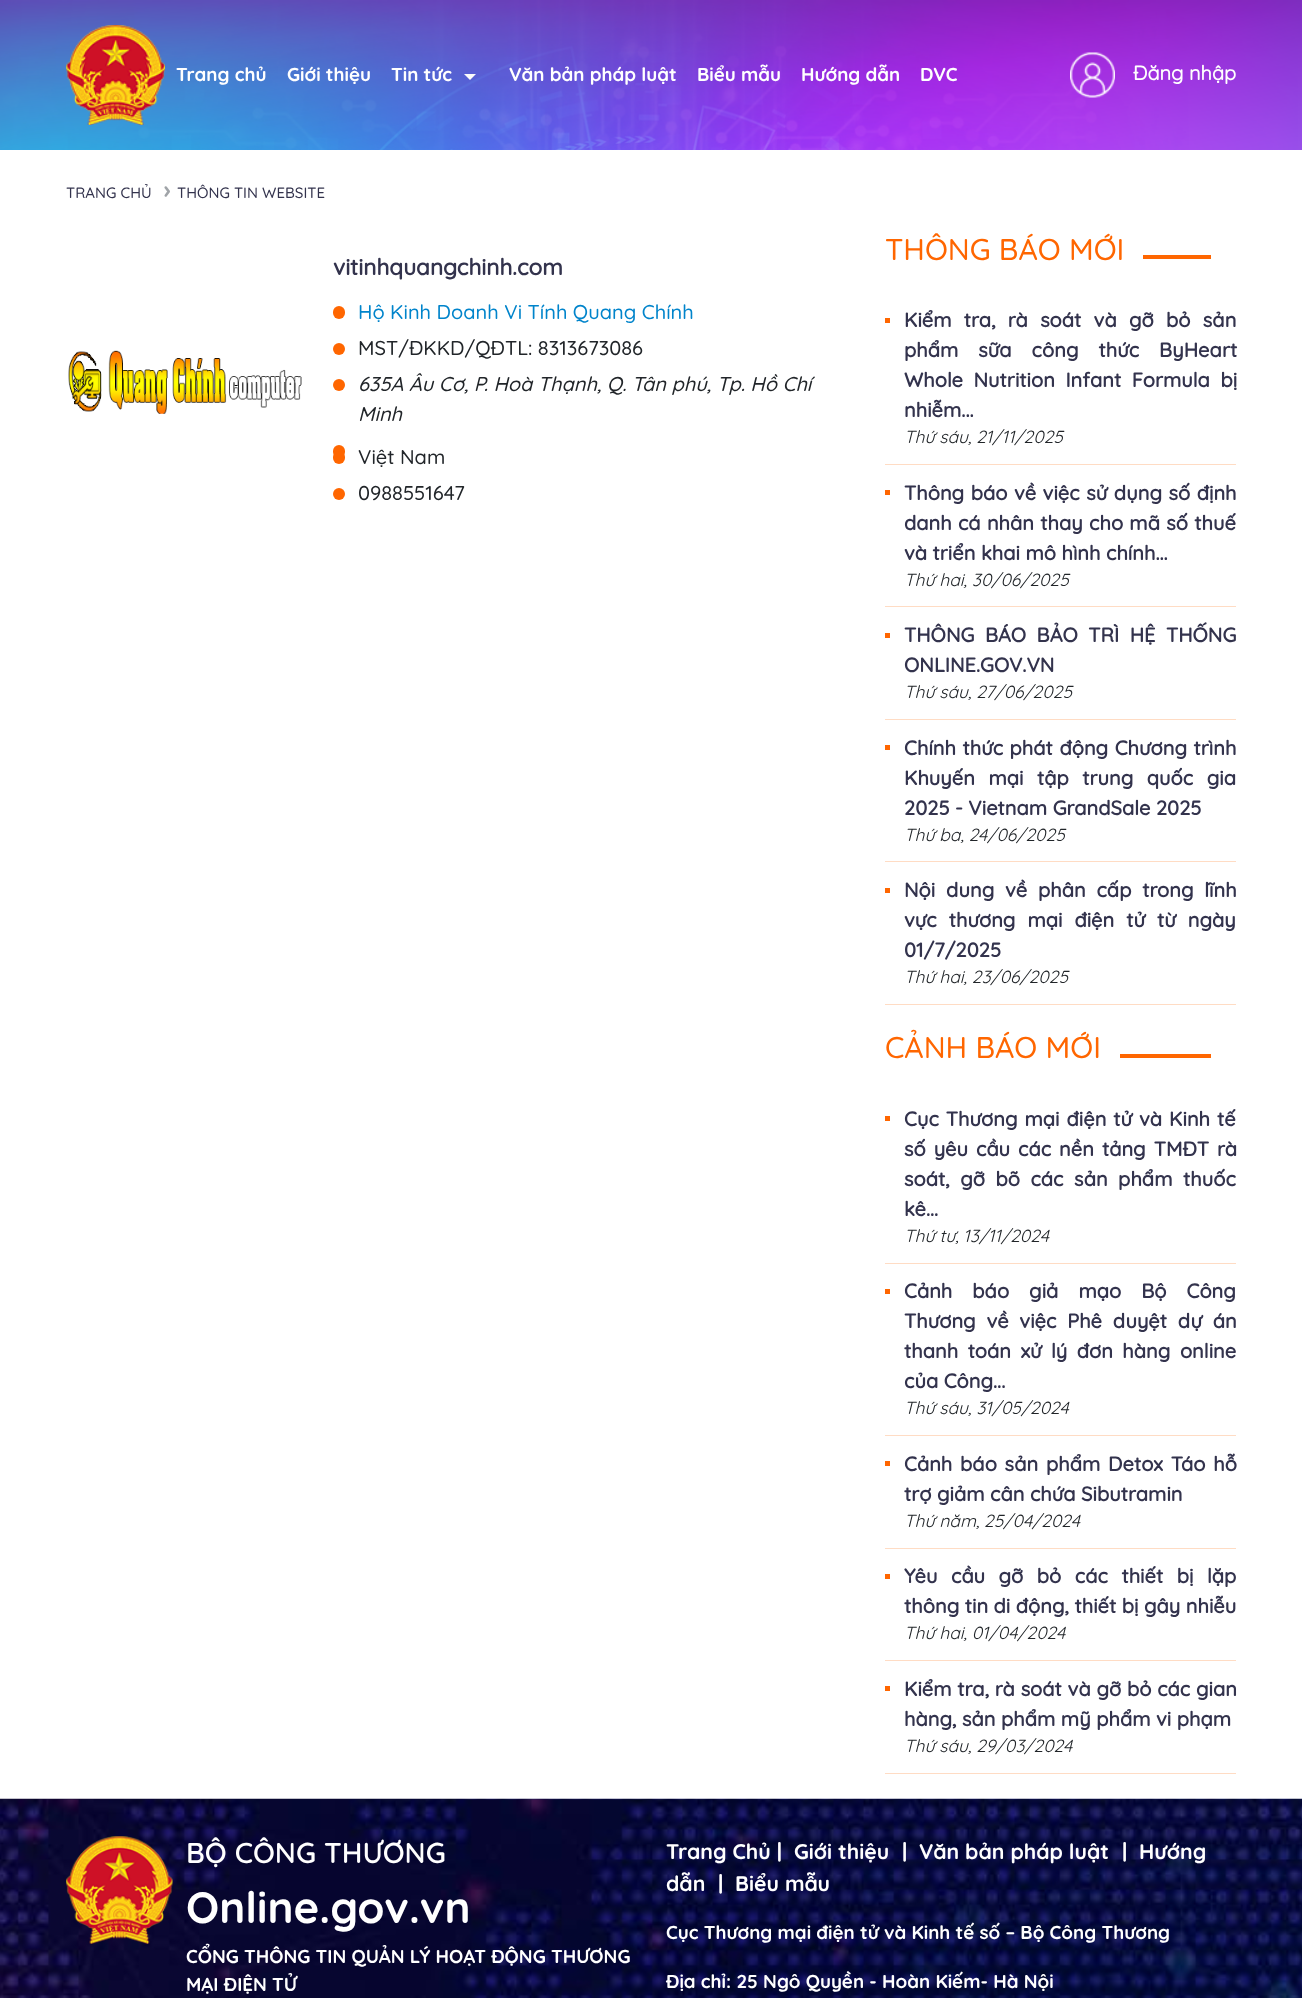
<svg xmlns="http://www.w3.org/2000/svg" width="1302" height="1998">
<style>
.a{font:bold 18.75px 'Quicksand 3';fill:#fff}
.b{font:bold 20px Quicksand;fill:#fff}
.c{font:500 15px Quicksand;fill:#33334d}
.d{font:bold 25px 'Quicksand 3';fill:#a0a4a8}
.e{font:bold 22.5px 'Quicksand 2';fill:#33334d}
.f{font:500 20px Quicksand;fill:#0084cb}
.g{font:500 20px Quicksand;fill:#212529}
.h{font:italic 500 20px Quicksand;fill:#212529}
.i{font:500 30px Quicksand;fill:#f60}
.j{font:bold 20px 'Quicksand 2';fill:#33334d}
.k{font:italic 17.5px Quicksand;fill:#212529}
.l{font:600 28.75px Quicksand;fill:#fff}
.m{font:bold 43.75px 'Quicksand 3';fill:#fff}
.n{font:bold 21.25px 'Quicksand 3';fill:#fff}
</style>
<rect width="100%" height="100%" fill="#fff"/>
<image href="1.png" x="0" y="0" width="1302" height="150"/>
<image href="2.png" x="66" y="25" width="99" height="100"/>
<path fill="#fbfbfb" d="M464 74h12l-6 6z"/>
<image href="3.png" x="1070" y="52" width="45" height="46"/>
<image href="4.png" x="68" y="350" width="234" height="64"/>
<rect fill="#f60" x="333" y="306" width="12" height="13" rx="6"/>
<circle fill="#f60" cx="339" cy="349" r="6"/>
<circle fill="#f60" cx="339" cy="385" r="6"/>
<rect fill="#f60" x="333" y="445" width="12" height="13" rx="6"/>
<rect fill="#f60" x="333" y="451" width="12" height="13" rx="6"/>
<circle fill="#f60" cx="339" cy="494" r="6"/>
<path fill="#f60" d="M1143 255h68v4H1143z"/>
<path fill="#ffdcc4" d="M885 464h351v1H885z"/>
<path fill="#f60" d="M885 318h5v5H885z"/>
<path fill="#ffdcc4" d="M885 606h351v1H885z"/>
<path fill="#f60" d="M885 490h5v5H885z"/>
<path fill="#ffdcc4" d="M885 719h351v1H885z"/>
<path fill="#f60" d="M885 633h5v5H885z"/>
<path fill="#ffdcc4" d="M885 861h351v1H885z"/>
<path fill="#f60" d="M885 745h5v5H885z"/>
<path fill="#ffdcc4" d="M885 1004h351v1H885z"/>
<path fill="#f60" d="M885 888h5v5H885z"/>
<path fill="#f60" d="M1120 1054h91v4H1120z"/>
<path fill="#ffdcc4" d="M885 1263h351v1H885z"/>
<path fill="#f60" d="M885 1116h5v5H885z"/>
<path fill="#ffdcc4" d="M885 1435h351v1H885z"/>
<path fill="#f60" d="M885 1289h5v5H885z"/>
<path fill="#ffdcc4" d="M885 1548h351v1H885z"/>
<path fill="#f60" d="M885 1461h5v5H885z"/>
<path fill="#ffdcc4" d="M885 1660h351v1H885z"/>
<path fill="#f60" d="M885 1574h5v5H885z"/>
<path fill="#ffdcc4" d="M885 1773h351v1H885z"/>
<path fill="#f60" d="M885 1686h5v5H885z"/>
<image href="5.png" x="0" y="1798" width="1302" height="200"/>
<image href="6.png" x="66" y="1836" width="107" height="108"/>
<text class="a" x="176" y="81">Trang chủ</text>
<text class="a" x="287" y="81">Giới thiệu</text>
<text class="a" x="391" y="81">Tin tức</text>
<text class="a" x="509" y="81">Văn bản pháp luật</text>
<text class="a" x="697" y="81">Biểu mẫu</text>
<text class="a" x="801" y="81">Hướng dẫn</text>
<text class="a" x="920" y="81">DVC</text>
<text class="b" x="1133" y="80">Đăng nhập</text>
<text class="c" x="66" y="198">TRANG CHỦ</text>
<text class="d" x="164" y="198">›</text>
<text class="c" x="177" y="198">THÔNG TIN WEBSITE</text>
<text class="e" x="333" y="275">vitinhquangchinh.com</text>
<text class="f" x="358" y="319">Hộ Kinh Doanh Vi Tính Quang Chính</text>
<text class="g" x="358" y="355">MST/ĐKKD/QĐTL: 8313673086</text>
<text class="h" x="358" y="391">635A Âu Cơ, P. Hoà Thạnh, Q. Tân phú, Tp. Hồ Chí</text>
<text class="h" x="358" y="421">Minh</text>
<text class="g" x="358" y="464">Việt Nam</text>
<text class="g" x="358" y="500">0988551647</text>
<text class="i" x="885" y="260">THÔNG BÁO MỚI</text>
<text class="j" x="904" y="327" word-spacing="6.75">Kiểm tra, rà soát và gỡ bỏ sản</text>
<text class="j" x="904" y="357" word-spacing="14.5">phẩm sữa công thức ByHeart</text>
<text class="j" x="904" y="387" word-spacing="5">Whole Nutrition Infant Formula bị</text>
<text class="j" x="904" y="417">nhiễm...</text>
<text class="k" x="904" y="443">Thứ sáu, 21/11/2025</text>
<text class="j" x="904" y="500" word-spacing="1">Thông báo về việc sử dụng số định</text>
<text class="j" x="904" y="530" word-spacing="0.75">danh cá nhân thay cho mã số thuế</text>
<text class="j" x="904" y="560">và triển khai mô hình chính...</text>
<text class="k" x="904" y="586">Thứ hai, 30/06/2025</text>
<text class="j" x="904" y="642" word-spacing="5">THÔNG BÁO BẢO TRÌ HỆ THỐNG</text>
<text class="j" x="904" y="672">ONLINE.GOV.VN</text>
<text class="k" x="904" y="698">Thứ sáu, 27/06/2025</text>
<text class="j" x="904" y="755" word-spacing="1">Chính thức phát động Chương trình</text>
<text class="j" x="904" y="785" word-spacing="8">Khuyến mại tập trung quốc gia</text>
<text class="j" x="904" y="815">2025 - Vietnam GrandSale 2025</text>
<text class="k" x="904" y="841">Thứ ba, 24/06/2025</text>
<text class="j" x="904" y="897" word-spacing="5.25">Nội dung về phân cấp trong lĩnh</text>
<text class="j" x="904" y="927" word-spacing="6.5">vực thương mại điện tử từ ngày</text>
<text class="j" x="904" y="957">01/7/2025</text>
<text class="k" x="904" y="983">Thứ hai, 23/06/2025</text>
<text class="i" x="885" y="1058">CẢNH BÁO MỚI</text>
<text class="j" x="904" y="1126" word-spacing="1.5">Cục Thương mại điện tử và Kinh tế</text>
<text class="j" x="904" y="1156" word-spacing="2.5">số yêu cầu các nền tảng TMĐT rà</text>
<text class="j" x="904" y="1186" word-spacing="5">soát, gỡ bõ các sản phẩm thuốc</text>
<text class="j" x="904" y="1216">kê...</text>
<text class="k" x="904" y="1242">Thứ tư, 13/11/2024</text>
<text class="j" x="904" y="1298" word-spacing="14.5">Cảnh báo giả mạo Bộ Công</text>
<text class="j" x="904" y="1328" word-spacing="5.25">Thương về việc Phê duyệt dự án</text>
<text class="j" x="904" y="1358" word-spacing="4">thanh toán xử lý đơn hàng online</text>
<text class="j" x="904" y="1388">của Công...</text>
<text class="k" x="904" y="1414">Thứ sáu, 31/05/2024</text>
<text class="j" x="904" y="1471" word-spacing="2.25">Cảnh báo sản phẩm Detox Táo hỗ</text>
<text class="j" x="904" y="1501">trợ giảm cân chứa Sibutramin</text>
<text class="k" x="904" y="1527">Thứ năm, 25/04/2024</text>
<text class="j" x="904" y="1583" word-spacing="8">Yêu cầu gỡ bỏ các thiết bị lặp</text>
<text class="j" x="904" y="1613">thông tin di động, thiết bị gây nhiễu</text>
<text class="k" x="904" y="1639">Thứ hai, 01/04/2024</text>
<text class="j" x="904" y="1696" word-spacing="0.25">Kiểm tra, rà soát và gỡ bỏ các gian</text>
<text class="j" x="904" y="1726">hàng, sản phẩm mỹ phẩm vi phạm</text>
<text class="k" x="904" y="1752">Thứ sáu, 29/03/2024</text>
<text class="l" x="186" y="1863">BỘ CÔNG THƯƠNG</text>
<text class="m" x="186" y="1923">Online.gov.vn</text>
<text class="a" x="186" y="1963">CỔNG THÔNG TIN QUẢN LÝ HOẠT ĐỘNG THƯƠNG</text>
<text class="a" x="186" y="1991">MẠI ĐIỆN TỬ</text>
<text class="n" x="666" y="1859">Trang Chủ |</text>
<text class="n" x="794" y="1859">Giới thiệu</text>
<text class="n" x="902" y="1859">|</text>
<text class="n" x="919" y="1859">Văn bản pháp luật</text>
<text class="n" x="1122" y="1859">|</text>
<text class="n" x="1139" y="1859">Hướng</text>
<text class="n" x="666" y="1891">dẫn</text>
<text class="n" x="718" y="1891">|</text>
<text class="n" x="735" y="1891">Biểu mẫu</text>
<text class="a" x="666" y="1939">Cục Thương mại điện tử và Kinh tế số – Bộ Công Thương</text>
<text class="a" x="666" y="1988">Địa chỉ: 25 Ngô Quyền - Hoàn Kiếm- Hà Nội</text>
</svg>
